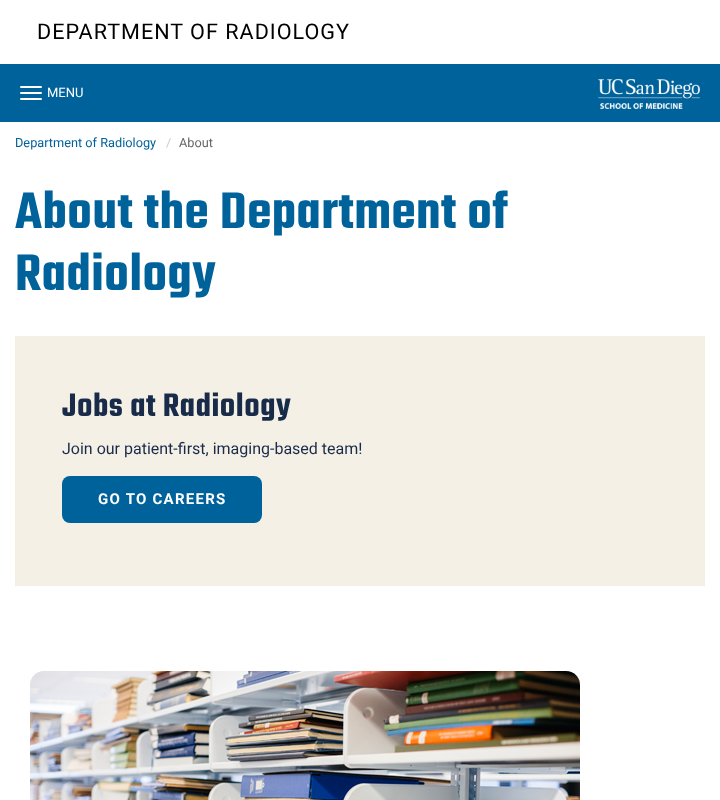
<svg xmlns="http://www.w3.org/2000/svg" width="720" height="800">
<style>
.a{font:21.6px Roboto;letter-spacing:1px;fill:#000}
.b{font:13px Roboto;fill:#fff}
.c{font:12.75px Roboto;fill:#00629b}
.d{font:12.75px Roboto;fill:#ccc}
.e{font:12.75px Roboto;fill:#666}
.f{font:600 56px Teko;letter-spacing:0.5px;fill:#00629b}
.g{font:600 35.25px Teko;letter-spacing:0.5px;fill:#182b49}
.h{font:16px Roboto;fill:#182b49}
.i{font:bold 15px Roboto;letter-spacing:1.25px;fill:#fff}
</style>
<rect width="100%" height="100%" fill="#fff"/>
<path fill="#00629b" d="M0 64h720v58H0z"/>
<rect fill="#fff" x="20" y="86" width="22" height="2" rx="1"/>
<rect fill="#fff" x="20" y="92" width="22" height="2" rx="1"/>
<rect fill="#fff" x="20" y="98" width="22" height="2" rx="1"/>
<image href="1.png" x="598" y="79" width="102" height="30"/>
<path fill="#f5f0e6" d="M15 336h690v250H15z"/>
<rect fill="#00629b" x="62" y="476" width="200" height="47" rx="8"/>
<image href="2.png" x="30" y="671" width="550" height="129"/>
<text class="a" x="37" y="39">DEPARTMENT OF RADIOLOGY</text>
<text class="b" x="47" y="97">MENU</text>
<text class="c" x="15" y="147">Department of Radiology</text>
<text class="d" x="166" y="147">/</text>
<text class="e" x="179" y="147">About</text>
<text class="f" x="15" y="228">About the Department of</text>
<text class="f" x="15" y="290">Radiology</text>
<text class="g" x="62" y="416">Jobs at Radiology</text>
<text class="h" x="62" y="454">Join our patient-first, imaging-based team!</text>
<text class="i" x="98" y="504">GO TO CAREERS</text>
</svg>
